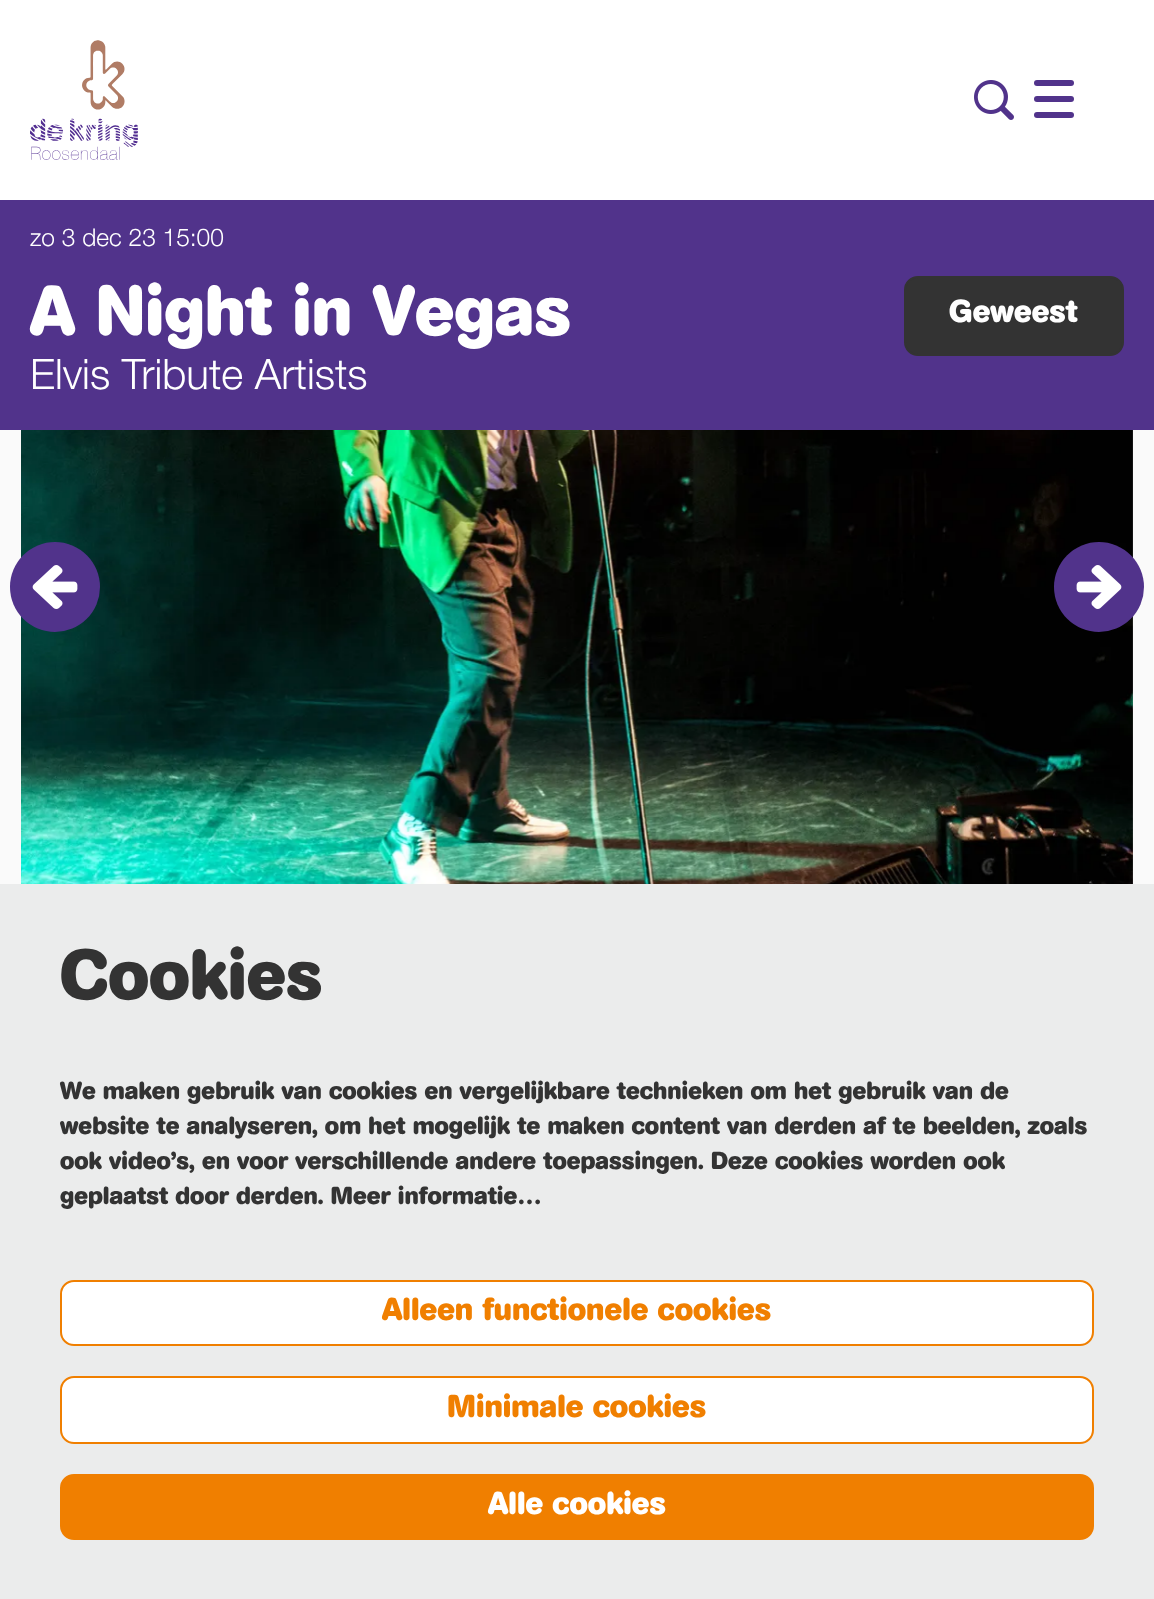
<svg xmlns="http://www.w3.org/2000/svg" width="1154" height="1599">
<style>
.a{font:300 24.5px Helvetica Neue;fill:#fff}
.b{font:bold 70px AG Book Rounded;fill:#fff}
.c{font:300 42px Helvetica Neue;fill:#fff}
.d{font:bold 31.5px AG Book Rounded;fill:#fff}
.e{font:bold 70px AG Book Rounded;fill:#333}
.f{font:bold 24.5px AG Book Rounded;fill:#333}
.g{font:bold 31.5px AG Book Rounded;fill:#f07f00}
</style>
<rect width="100%" height="100%" fill="#fafafa"/>
<path fill="#fff" d="M0 0h1154v200H0z"/>
<image href="1.png" x="30" y="40" width="108" height="120"/>
<image href="2.png" x="974" y="80" width="40" height="40"/>
<rect fill="#51338b" x="1034" y="80" width="40" height="6" rx="3"/>
<rect fill="#51338b" x="1034" y="96" width="40" height="6" rx="3"/>
<rect fill="#51338b" x="1034" y="112" width="40" height="6" rx="3"/>
<path fill="#51338b" d="M0 200h1154v230H0z"/>
<rect fill="#333" stroke="#333" stroke-width="2" x="905" y="277" width="218" height="78" rx="13"/>
<image href="3.png" x="21" y="430" width="1112" height="454"/>
<circle fill="#51338b" cx="55" cy="587" r="45"/>
<image href="4.png" x="32" y="565" width="46" height="44"/>
<circle fill="#51338b" cx="1099" cy="587" r="45"/>
<image href="5.png" x="1076" y="565" width="46" height="44"/>
<path fill="#ebecec" d="M0 884h1154v715H0z"/>
<rect fill="#fff" stroke="#f07f00" stroke-width="2" x="61" y="1281" width="1032" height="64" rx="13"/>
<rect fill="#fff" stroke="#f07f00" stroke-width="2" x="61" y="1377" width="1032" height="66" rx="13"/>
<rect fill="#f07f00" stroke="#f07f00" stroke-width="2" x="61" y="1475" width="1032" height="64" rx="13"/>
<text class="a" x="30" y="246">zo 3 dec 23 15:00</text>
<text class="b" x="30" y="335">A Night in Vegas</text>
<text class="c" x="30" y="389">Elvis Tribute Artists</text>
<text class="d" x="949" y="322">Geweest</text>
<text class="e" x="60" y="999">Cookies</text>
<text class="f" x="60" y="1099">We maken gebruik van cookies en vergelijkbare technieken om het gebruik van de</text>
<text class="f" x="60" y="1134">website te analyseren, om het mogelijk te maken content van derden af te beelden, zoals</text>
<text class="f" x="60" y="1169">ook video’s, en voor verschillende andere toepassingen. Deze cookies worden ook</text>
<text class="f" x="60" y="1204">geplaatst door derden. Meer informatie…</text>
<text class="g" x="382" y="1320">Alleen functionele cookies</text>
<text class="g" x="447" y="1417">Minimale cookies</text>
<text class="d" x="488" y="1514">Alle cookies</text>
</svg>
